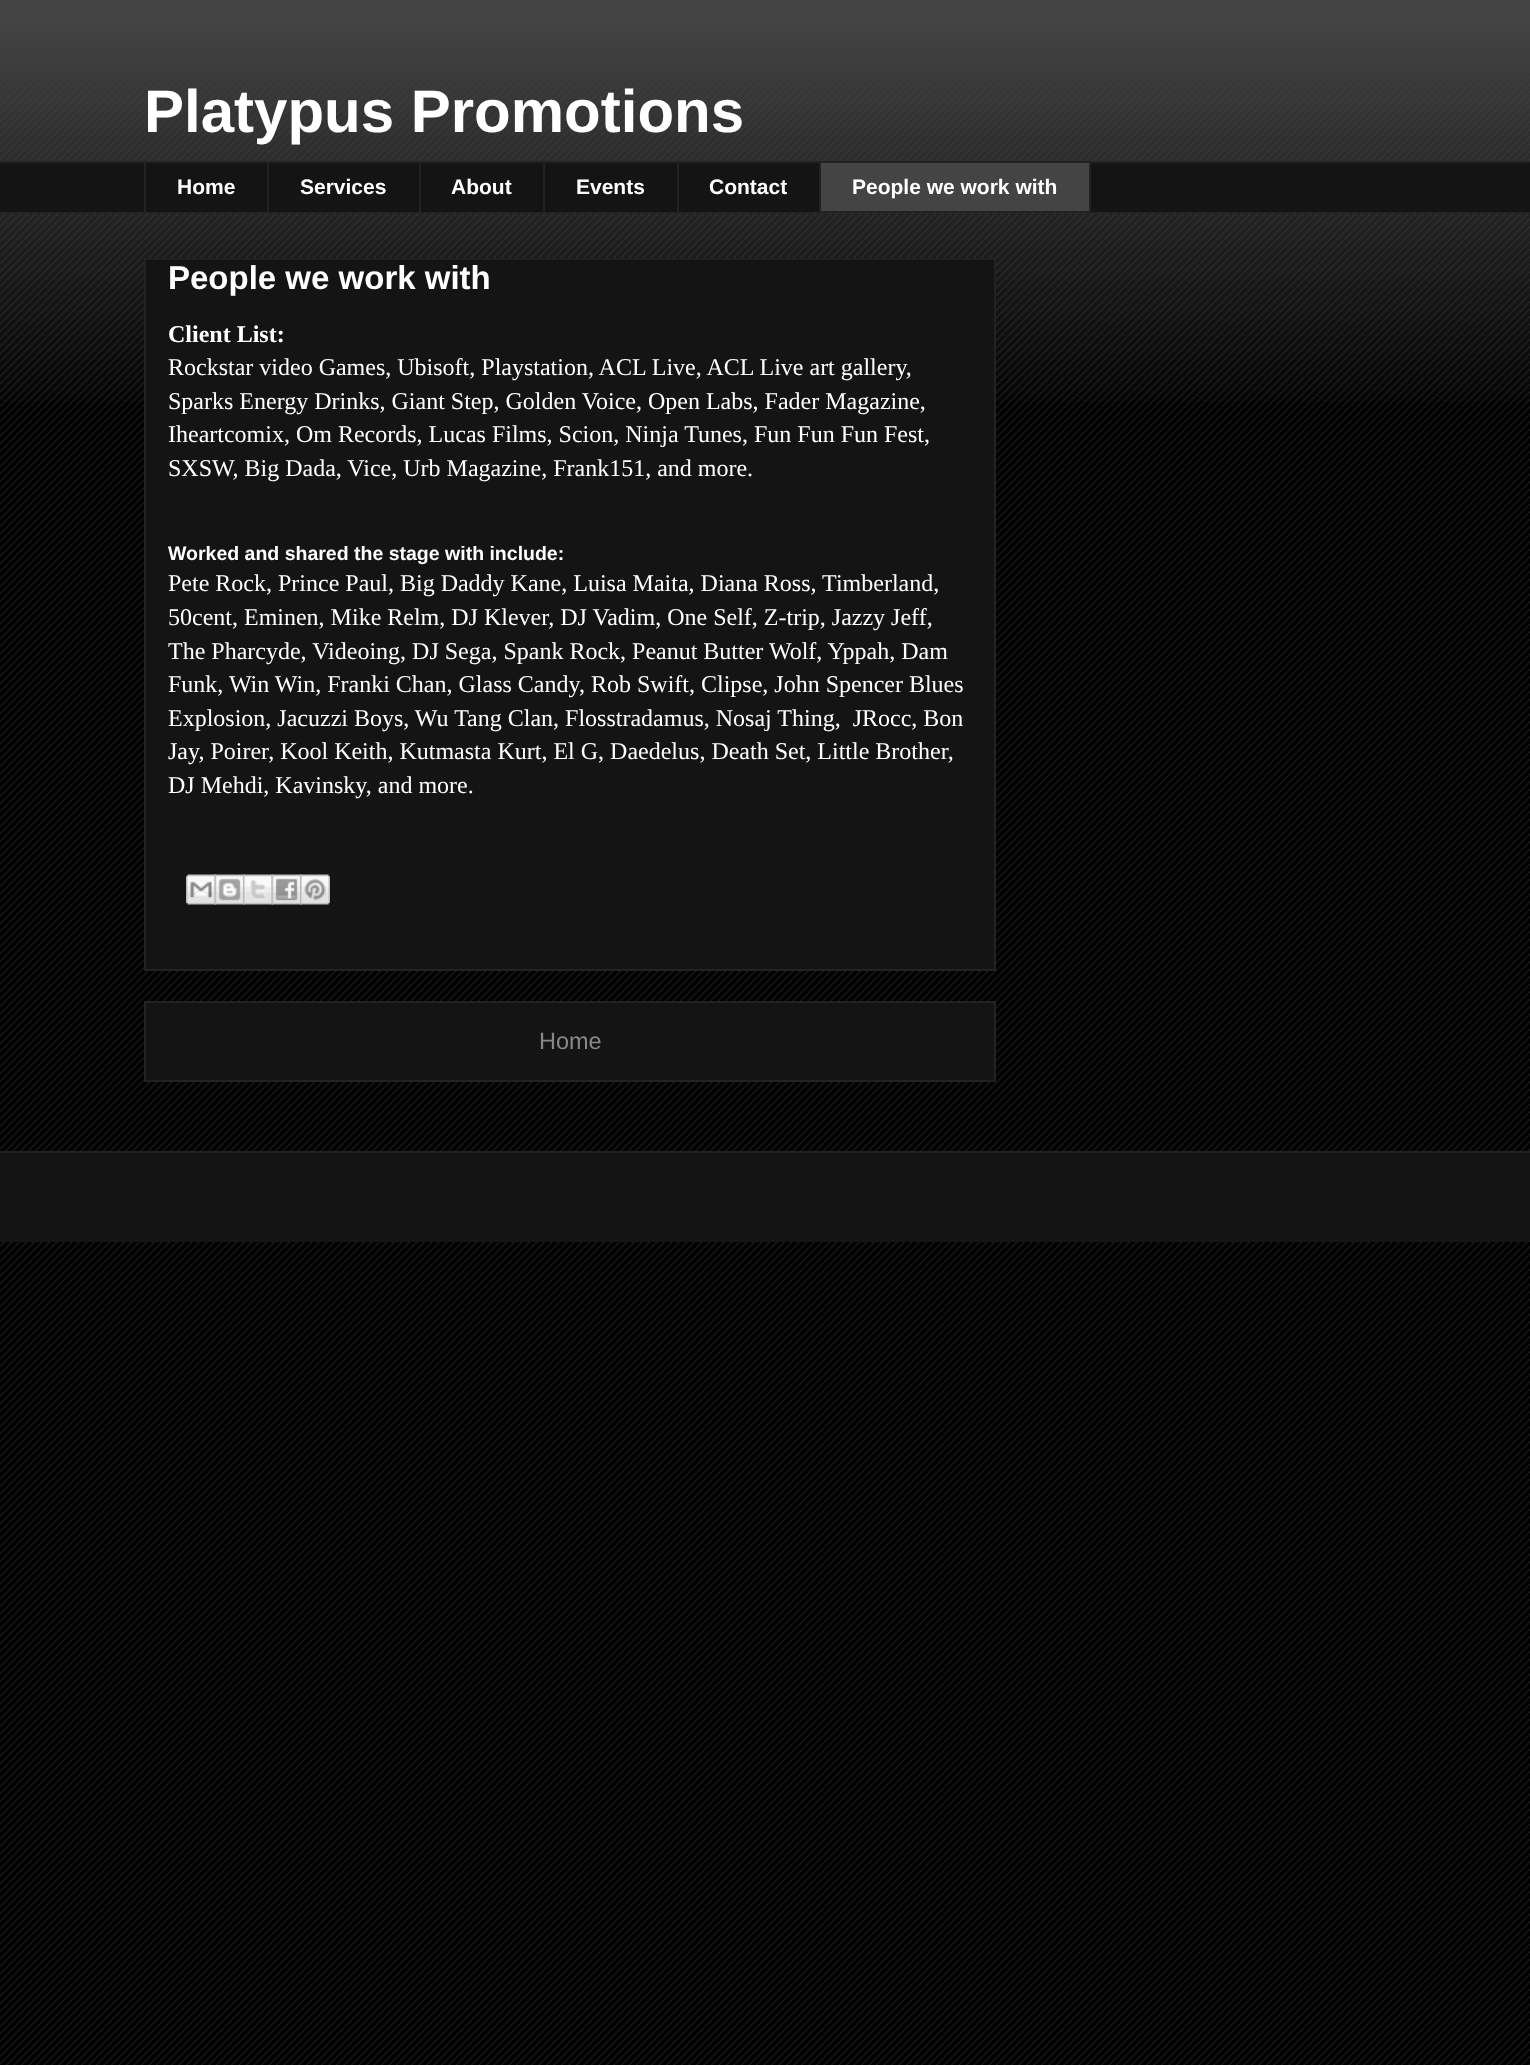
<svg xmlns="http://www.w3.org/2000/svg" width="1530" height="2065">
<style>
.a{font:bold 60px Liberation Sans;fill:#fff}
.b{font:bold 21px Liberation Sans;fill:#fff}
.c{font:bold 33px Liberation Sans;fill:#fff}
.d{font:bold 24px Liberation Serif;fill:#fff}
.e{font:24px Liberation Serif;fill:#fff}
.f{font:bold 19.5px Liberation Sans;fill:#fff}
.g{font:23.5px Liberation Sans;fill:#888}
</style>
<rect width="100%" height="100%" fill="#000"/>
<image href="1.png" x="0" y="20" width="1530" height="2045"/>
<image href="2.png" x="0" y="0" width="1530" height="402"/>
<path fill="#141414" d="M0 163h1530v49H0z"/>
<path fill="#222" d="M0 161h1530v2H0z"/>
<path fill="#222" d="M144 161h2v52H144z"/>
<path fill="#222" d="M267 161h2v52H267z"/>
<path fill="#222" d="M419 161h2v52H419z"/>
<path fill="#222" d="M543 161h2v52H543z"/>
<path fill="#222" d="M677 161h2v52H677z"/>
<path fill="#444" stroke="#222" stroke-width="2" d="M820 162h270v50H820z"/>
<path fill="#222" d="M0 212h1530v1H0z"/>
<path fill="#141414" stroke="#222" stroke-width="2" d="M145 259h850v711H145z"/>
<image href="3.png" x="186" y="874" width="30" height="31"/>
<image href="4.png" x="214" y="874" width="31" height="31"/>
<image href="5.png" x="243" y="874" width="30" height="31"/>
<image href="6.png" x="271" y="874" width="31" height="31"/>
<image href="7.png" x="300" y="874" width="30" height="31"/>
<path fill="#141414" stroke="#222" stroke-width="2" d="M145 1002h850v79H145z"/>
<path fill="#141414" d="M0 1153h1530v89H0z"/>
<path fill="#222" d="M0 1151h1530v2H0z"/>
<text class="a" x="144" y="132">Platypus Promotions</text>
<text class="b" x="177" y="194">Home</text>
<text class="b" x="300" y="194">Services</text>
<text class="b" x="451" y="194">About</text>
<text class="b" x="576" y="194">Events</text>
<text class="b" x="709" y="194">Contact</text>
<text class="b" x="852" y="194">People we work with</text>
<text class="c" x="168" y="289">People we work with</text>
<text class="d" x="168" y="342">Client List:</text>
<text class="e" x="168" y="375">Rockstar video Games, Ubisoft, Playstation, ACL Live, ACL Live art gallery,</text>
<text class="e" x="168" y="409">Sparks Energy Drinks, Giant Step, Golden Voice, Open Labs, Fader Magazine,</text>
<text class="e" x="168" y="442">Iheartcomix, Om Records, Lucas Films, Scion, Ninja Tunes, Fun Fun Fun Fest,</text>
<text class="e" x="168" y="476">SXSW, Big Dada, Vice, Urb Magazine, Frank151, and more.</text>
<text class="f" x="168" y="560">Worked and shared the stage with include:</text>
<text class="e" x="168" y="591">Pete Rock, Prince Paul, Big Daddy Kane, Luisa Maita, Diana Ross, Timberland,</text>
<text class="e" x="168" y="625">50cent, Eminen, Mike Relm, DJ Klever, DJ Vadim, One Self, Z-trip, Jazzy Jeff,</text>
<text class="e" x="168" y="659">The Pharcyde, Videoing, DJ Sega, Spank Rock, Peanut Butter Wolf, Yppah, Dam</text>
<text class="e" x="168" y="692">Funk, Win Win, Franki Chan, Glass Candy, Rob Swift, Clipse, John Spencer Blues</text>
<text class="e" xml:space="preserve" x="168" y="726">Explosion, Jacuzzi Boys, Wu Tang Clan, Flosstradamus, Nosaj Thing,  JRocc, Bon</text>
<text class="e" x="168" y="759">Jay, Poirer, Kool Keith, Kutmasta Kurt, El G, Daedelus, Death Set, Little Brother,</text>
<text class="e" x="168" y="793">DJ Mehdi, Kavinsky, and more.</text>
<text class="g" x="539" y="1049">Home</text>
</svg>
